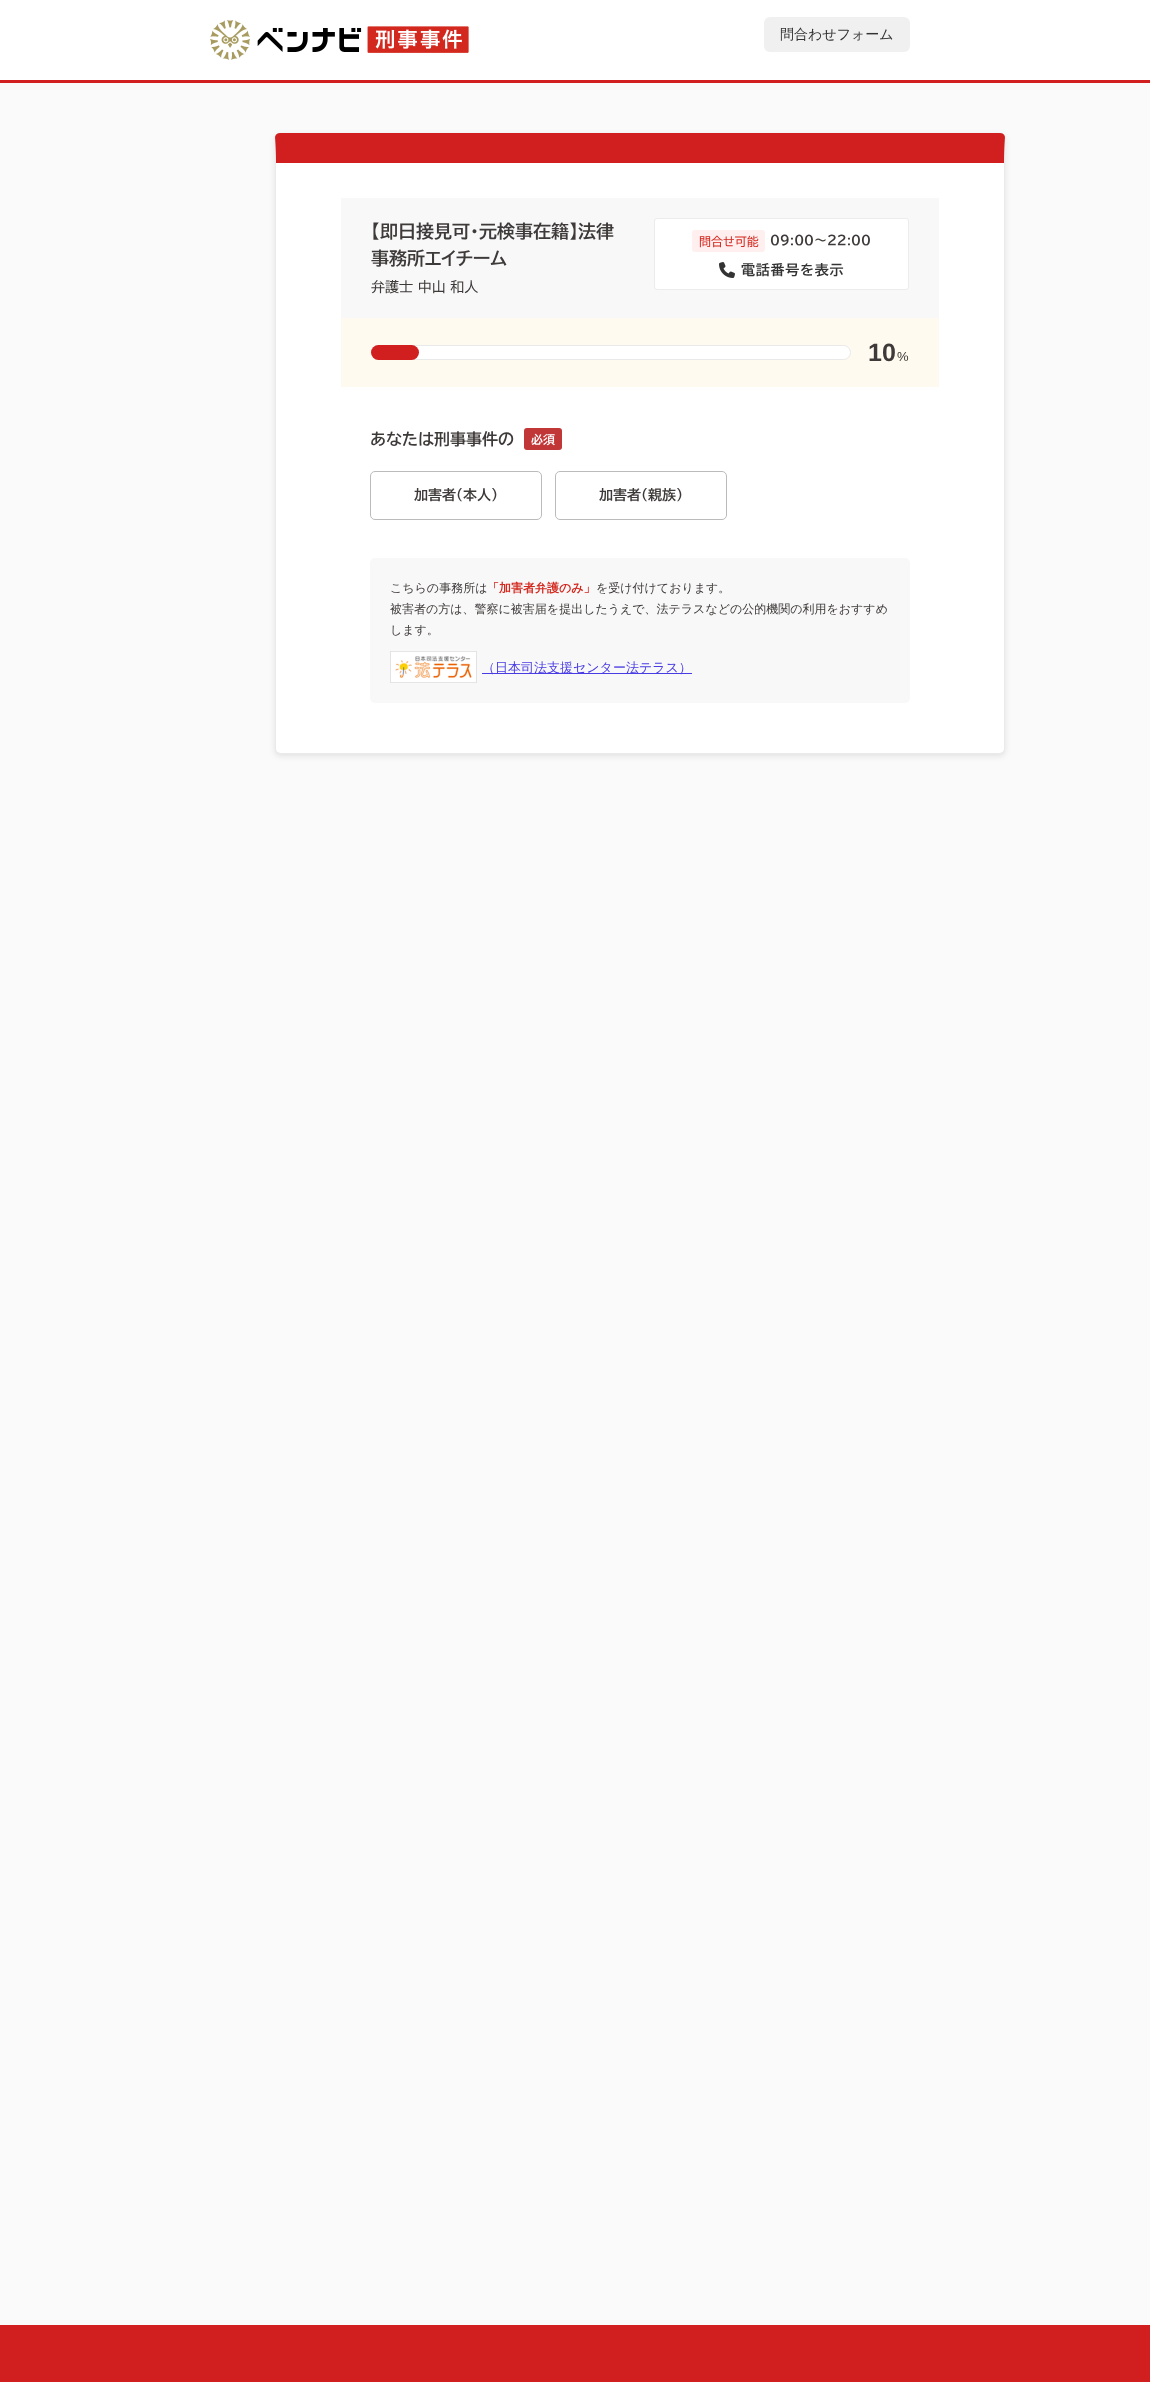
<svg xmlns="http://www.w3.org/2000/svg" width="1150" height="2382">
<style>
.a{font:500 14px WenQuanYi Zen Hei;fill:#333}
.b{font:bold 18px BIZ UDPGothic;fill:#3e3a39}
.c{font:14px BIZ UDPGothic;fill:#3e3a39}
.d{font:12px BIZ UDPGothic;fill:#d2281e}
.e{font:bold 13px BIZ UDPGothic;fill:#3e3a39}
.f{font:bold 14px BIZ UDPGothic;letter-spacing:0.75px;fill:#333}
.g{font:bold 25px Liberation Sans;fill:#3e3a39}
.h{font:13px Liberation Sans;fill:#3e3a39}
.i{font:bold 16px BIZ UDPGothic;fill:#3e3a39}
.j{font:bold 12px BIZ UDPGothic;fill:#fff}
.k{font:bold 14px BIZ UDPGothic;fill:#3e3a39}
.l{font:500 12px WenQuanYi Zen Hei;fill:#3e3a39}
.m{font:bold 12px WenQuanYi Zen Hei;fill:#d2281e}
.n{font:500 13px WenQuanYi Zen Hei;fill:#493ce3}
</style>
<rect width="100%" height="100%" fill="#fafafa"/>
<path fill="#fff" d="M0 0h1150v80H0z"/>
<path fill="#d11f1f" d="M0 80h1150v3H0z"/>
<image href="1.png" x="210" y="20" width="259" height="40"/>
<rect fill="#f0f0f0" x="764" y="17" width="146" height="35" rx="6"/>
<rect fill="#0000001a" filter="blur(3px)" x="275" y="135" width="730" height="621" rx="5"/>
<path fill="#fff" d="M280 163h724v586c0 2-2 4-4 4h-720c-2 0-4-2-4-4v-586z"/>
<path fill="#d11f1f" d="M280 133c-3 0-4 1-5 4l1 26h728l1-26c-1-3-2-4-5-4z"/>
<path fill="#eaeaea" d="M1005 749v-612l-1 26v586c0 1 0 2-1 3l1 1c0-1 1-3 1-4z"/>
<path fill="#eaeaea" d="M280 754h720c2 0 3 0 4-1l-1-1l-3 1h-720l-3-1l-1 1c1 1 2 1 4 1z"/>
<path fill="#eaeaea" d="M275 138v611c0 1 1 3 1 4l1-1c-1-1-1-2-1-3v-586l-1-26z"/>
<path fill="#f8f8f8" d="M341 198h598v120H341z"/>
<rect fill="#fff" stroke="#ececec" x="654.5" y="218.5" width="254" height="71" rx="2.5"/>
<rect fill="#ffefef" x="692" y="230" width="73" height="22" rx="3"/>
<image href="2.png" x="719" y="262" width="16" height="16"/>
<path fill="#fffaef" d="M341 318h598v69H341z"/>
<rect fill="#fff" stroke="#e9e9e9" x="371.5" y="345.5" width="479" height="14" rx="7"/>
<rect fill="#d11f1f" x="371" y="345" width="48" height="15" rx="7.5"/>
<rect fill="#c13636" x="524" y="428" width="38" height="22" rx="3"/>
<rect fill="none" stroke="#bbb" x="370.5" y="471.5" width="171" height="48" rx="4.5"/>
<rect fill="none" stroke="#bbb" x="555.5" y="471.5" width="171" height="48" rx="4.5"/>
<rect fill="#f8f8f8" x="370" y="558" width="540" height="145" rx="5"/>
<image href="3.png" x="390" y="651" width="87" height="32"/>
<path fill="#493ce3" d="M482 673h210v1H482z"/>
<path fill="#d11f1f" d="M0 2325h1150v57H0z"/>
<text class="a" x="780" y="39">問合わせフォーム</text>
<text class="b" x="371" y="238">【即日接見可・元検事在籍】法律</text>
<text class="b" x="371" y="265">事務所エイチーム</text>
<text class="c" x="371" y="292">弁護士 中山 和人</text>
<text class="d" x="699" y="246">問合せ可能</text>
<text class="e" x="770" y="245">09:00〜22:00</text>
<text class="f" x="741" y="275">電話番号を表示</text>
<text class="g" x="868" y="361">10</text>
<text class="h" x="897" y="361">%</text>
<text class="i" x="370" y="445">あなたは刑事事件の</text>
<text class="j" x="531" y="444">必須</text>
<text class="k" x="414" y="500">加害者（本人）</text>
<text class="k" x="599" y="500">加害者（親族）</text>
<text class="l" x="390" y="592">こちらの事務所は</text>
<text class="m" x="487" y="592">「加害者弁護のみ」</text>
<text class="l" x="596" y="592">を受け付けております。</text>
<text class="l" x="390" y="613">被害者の方は、警察に被害届を提出したうえで、法テラスなどの公的機関の利用をおすすめ</text>
<text class="l" x="390" y="634">します。</text>
<text class="n" x="482" y="672">（日本司法支援センター法テラス）</text>
</svg>
